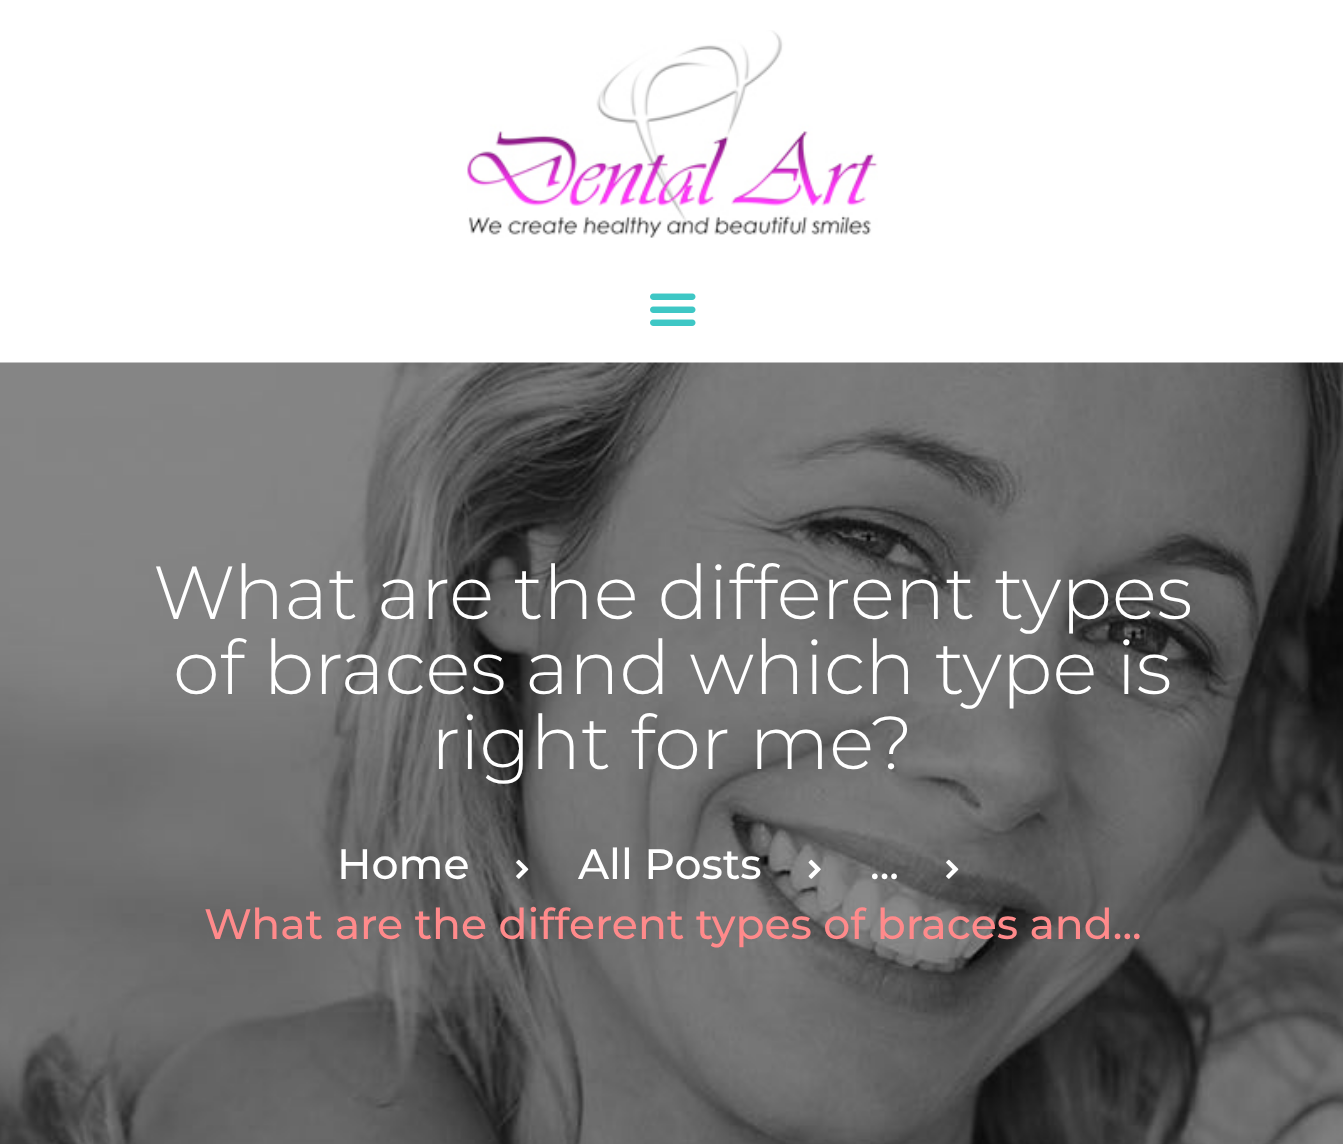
<svg xmlns="http://www.w3.org/2000/svg" width="1343" height="1144">
<style>
.a{font:300 75px Montserrat;fill:#fff}
.b{font:500 42.5px Montserrat;fill:#fff}
.c{font:500 42.5px Montserrat;fill:#ff8a8b}
</style>
<rect width="100%" height="100%" fill="#fff"/>
<image href="1.png" x="467" y="30" width="411" height="208"/>
<image href="2.png" x="650" y="293" width="46" height="33"/>
<image href="3.png" x="0" y="362" width="1343" height="782"/>
<image href="4.png" x="516" y="859" width="13" height="20"/>
<image href="5.png" x="808" y="859" width="13" height="20"/>
<image href="6.png" x="946" y="859" width="13" height="20"/>
<text class="a" x="153" y="619">What are the different types</text>
<text class="a" x="173" y="694">of braces and which type is</text>
<text class="a" x="431" y="769">right for me?</text>
<text class="b" x="337" y="879">Home</text>
<text class="b" x="578" y="879">All Posts</text>
<text class="b" x="870" y="879">...</text>
<text class="c" x="204" y="939">What are the different types of braces and...</text>
</svg>
